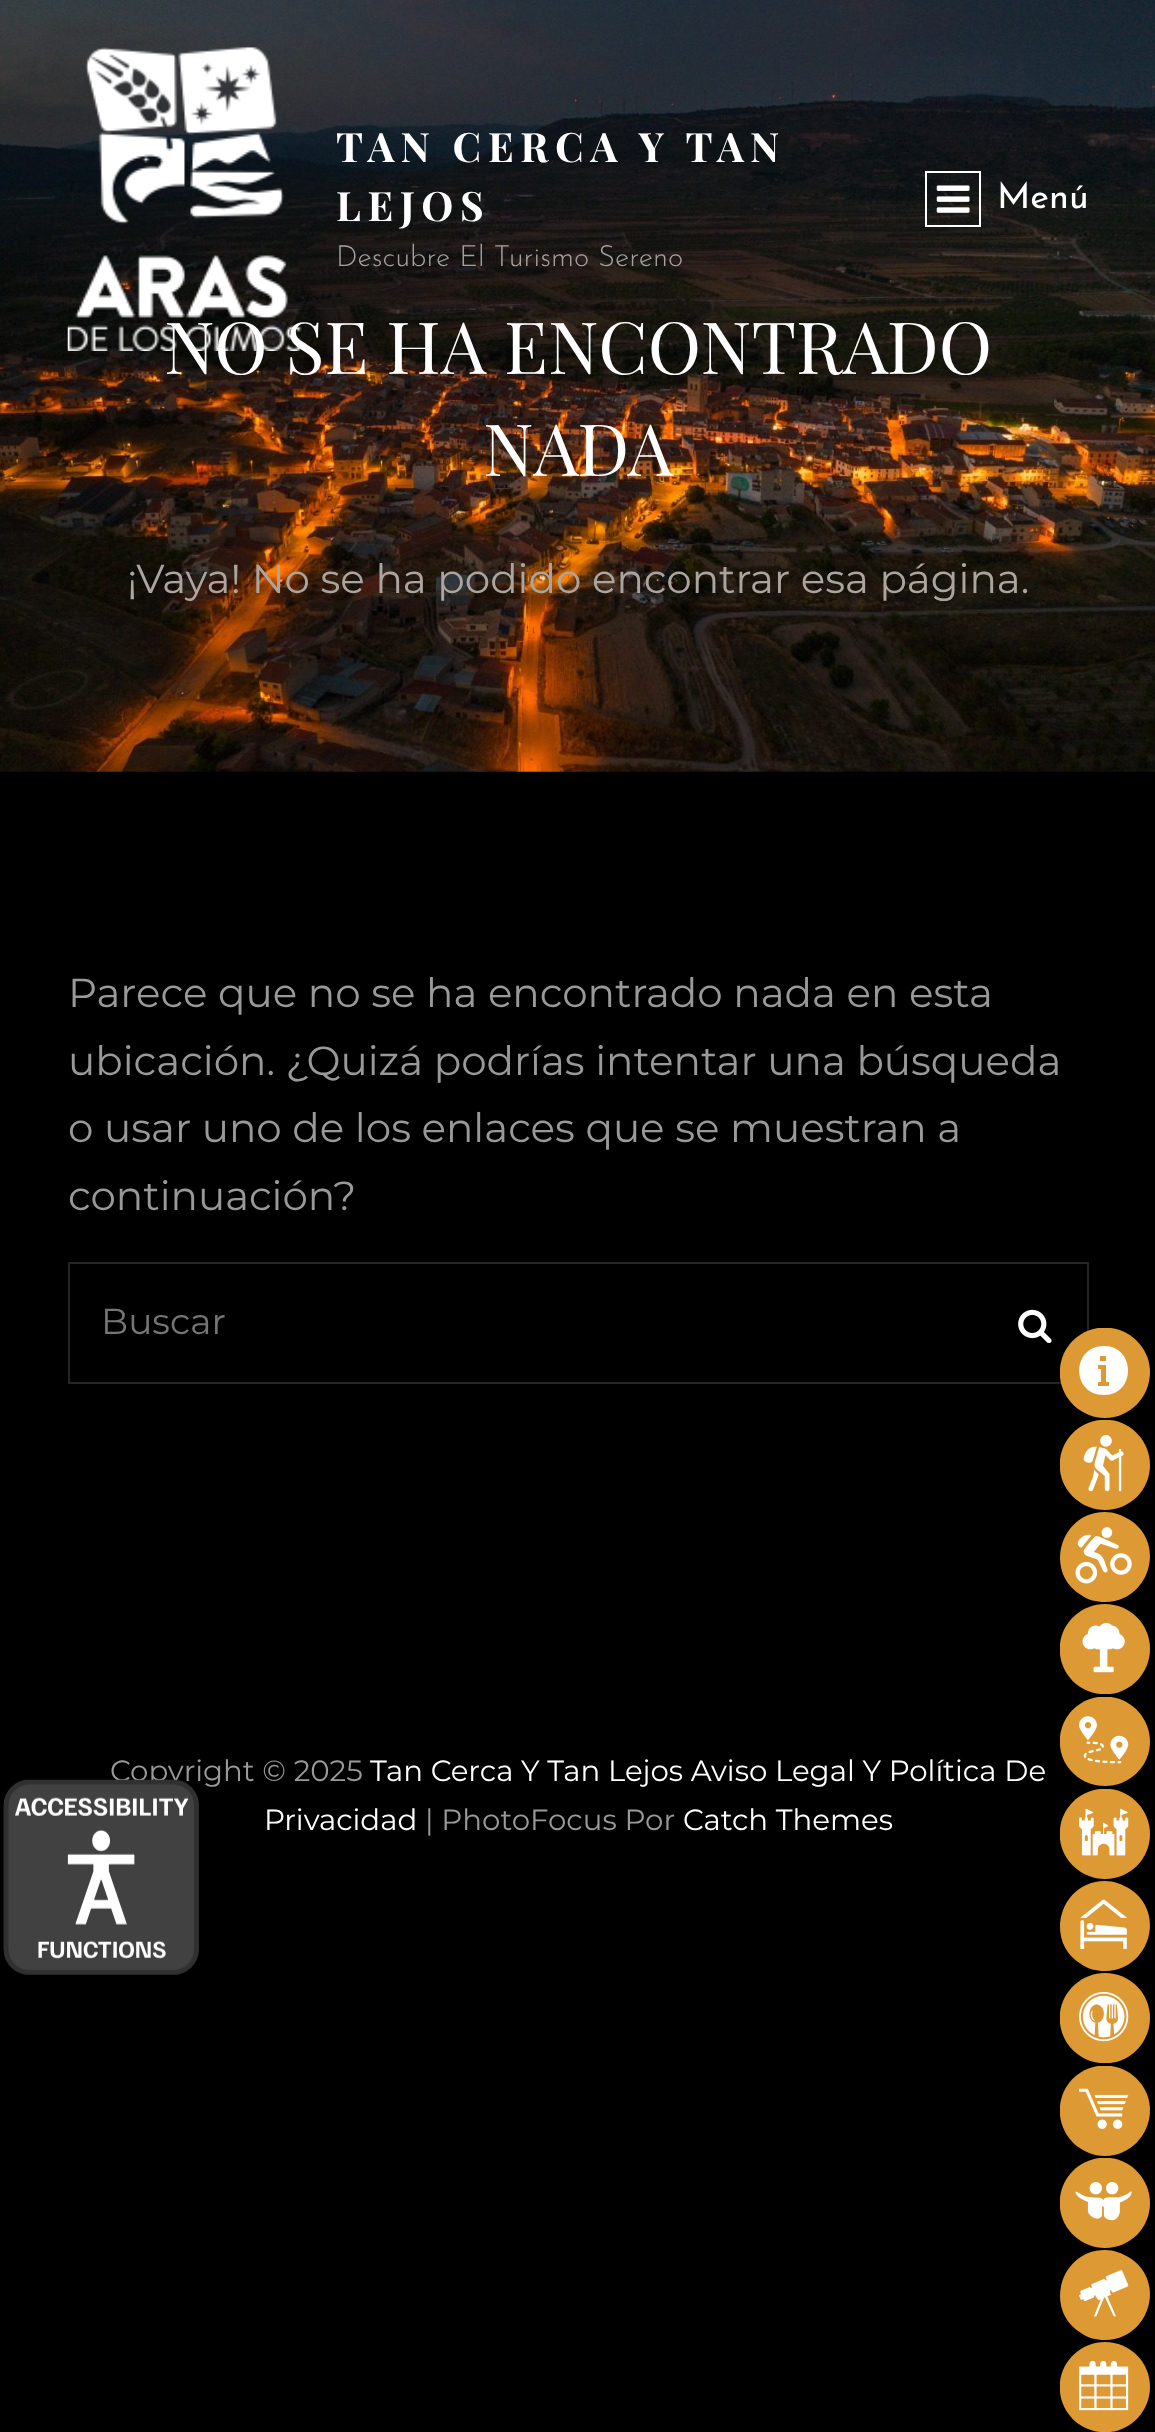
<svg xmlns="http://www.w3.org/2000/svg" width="1155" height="2432">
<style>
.a{font:bold 40.5px Playfair Display;letter-spacing:6.75px;fill:#fff}
.b{font:300 29.25px Josefin Sans;fill:#a4a2a1}
.c{font:36px Josefin Sans;fill:#fff}
.d{font:72px Playfair Display;fill:#fff}
.e{font:40.5px Montserrat;fill:#aca59f}
.f{font:40.5px Montserrat;fill:#999}
.g{font:36px Montserrat;fill:#757575}
.h{font:29.25px Montserrat;fill:#999}
.i{font:29.25px Montserrat;fill:#fff}
</style>
<rect width="100%" height="100%" fill="#000"/>
<image href="3.png" x="0" y="0" width="1155" height="772"/>
<path fill="none" stroke="#fff" stroke-width="2" d="M926 172h54v54H926z"/>
<image href="2.png" x="936" y="185" width="34" height="28"/>
<path fill="none" stroke="#252525" stroke-width="2" d="M69 1263h1019v120H69z"/>
<image href="4.png" x="1018" y="1309" width="34" height="34"/>
<path fill="#d93" d="M1060 1368c2-21 18-37 38-40h13c22 3 39 22 39 44c0 25-20 46-45 46c-23 0-43-18-45-41z"/>
<path fill="#fff" d="M1104 1346c-33 0-33 49 0 49c32 0 32-49 0-49zm-4 10h6v5h-6zm9 30h-11v-4h3v-13h-3v-4h8v17h3z"/>
<path fill="#d93" d="M1060 1460c2-21 19-38 40-40h10c22 2 40 22 40 45c0 25-20 45-45 45c-23 0-43-18-45-40z"/>
<image href="5.png" x="1083" y="1435" width="41" height="57"/>
<path fill="#d93" d="M1105 1512c-45 0-62 60-24 83c7 5 15 7 24 7c44 0 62-58 25-82c-8-5-16-8-25-8z"/>
<image href="6.png" x="1075" y="1527" width="57" height="57"/>
<path fill="#d93" d="M1105 1604c25 0 45 20 45 45c0 23-18 43-40 45h-10c-21-2-38-19-40-40v-10c2-22 22-40 45-40z"/>
<image href="7.png" x="1082" y="1623" width="43" height="50"/>
<path fill="#d93" d="M1060 1737c2-21 18-37 38-40h13c22 3 39 22 39 45c0 24-20 44-45 44c-23 0-43-17-45-40z"/>
<image href="8.png" x="1079" y="1716" width="50" height="48"/>
<path fill="#d93" d="M1060 1829c2-21 19-38 40-40h10c22 2 40 22 40 45c0 25-20 45-45 45c-23 0-43-18-45-40z"/>
<image href="9.png" x="1079" y="1808" width="50" height="48"/>
<path fill="#d93" d="M1105 1881c-45 0-62 60-24 83c7 5 15 7 24 7c44 0 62-58 25-82c-8-5-16-8-25-8z"/>
<image href="10.png" x="1080" y="1899" width="47" height="50"/>
<path fill="#d93" d="M1105 1973c25 0 45 20 45 45c0 23-18 43-40 45h-10c-21-2-38-19-40-40v-10c2-22 22-40 45-40z"/>
<image href="11.png" x="1079" y="1991" width="50" height="51"/>
<path fill="#d93" d="M1060 2106c2-21 18-37 38-40h13c22 3 39 22 39 44c0 25-20 46-45 46c-23 0-43-18-45-41z"/>
<image href="12.png" x="1079" y="2088" width="50" height="41"/>
<path fill="#d93" d="M1060 2198c2-21 19-38 40-40h10c22 2 40 22 40 45c0 25-20 45-45 45c-23 0-43-18-45-40z"/>
<image href="13.png" x="1075" y="2182" width="57" height="39"/>
<path fill="#d93" d="M1105 2250c-45 0-62 60-24 83c7 5 15 7 24 7c44 0 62-58 25-82c-8-5-16-8-25-8z"/>
<image href="14.png" x="1079" y="2270" width="50" height="47"/>
<path fill="#d93" d="M1105 2342c25 0 45 20 45 45c0 23-18 43-40 45h-10c-21-2-38-19-40-40v-10c2-22 22-40 45-40z"/>
<image href="15.png" x="1079" y="2360" width="50" height="51"/>
<text class="a" x="336" y="162">TAN CERCA Y TAN</text>
<text class="a" x="336" y="221">LEJOS</text>
<text class="b" x="336" y="266">Descubre El Turismo Sereno</text>
<text class="c" x="997" y="208">Menú</text>
<text class="d" x="164" y="374">NO SE HA ENCONTRADO</text>
<image href="1.png" x="67" y="47" width="235" height="304"/>
<text class="d" x="483" y="476">NADA</text>
<text class="e" x="127" y="593">¡Vaya! No se ha podido encontrar esa página.</text>
<text class="f" x="68" y="1007">Parece que no se ha encontrado nada en esta</text>
<text class="f" x="68" y="1075">ubicación. ¿Quizá podrías intentar una búsqueda</text>
<text class="f" x="68" y="1142">o usar uno de los enlaces que se muestran a</text>
<text class="f" x="68" y="1210">continuación?</text>
<text class="g" x="101" y="1334">Buscar</text>
<text class="h" x="110" y="1781">Copyright © 2025</text>
<text class="i" x="370" y="1781">Tan Cerca Y Tan Lejos Aviso Legal Y Política De</text>
<text class="i" x="264" y="1830">Privacidad</text>
<text class="h" x="425" y="1830">| PhotoFocus Por</text>
<text class="i" x="683" y="1830">Catch Themes</text>
<image href="16.png" x="3" y="1779" width="196" height="196"/>
</svg>
